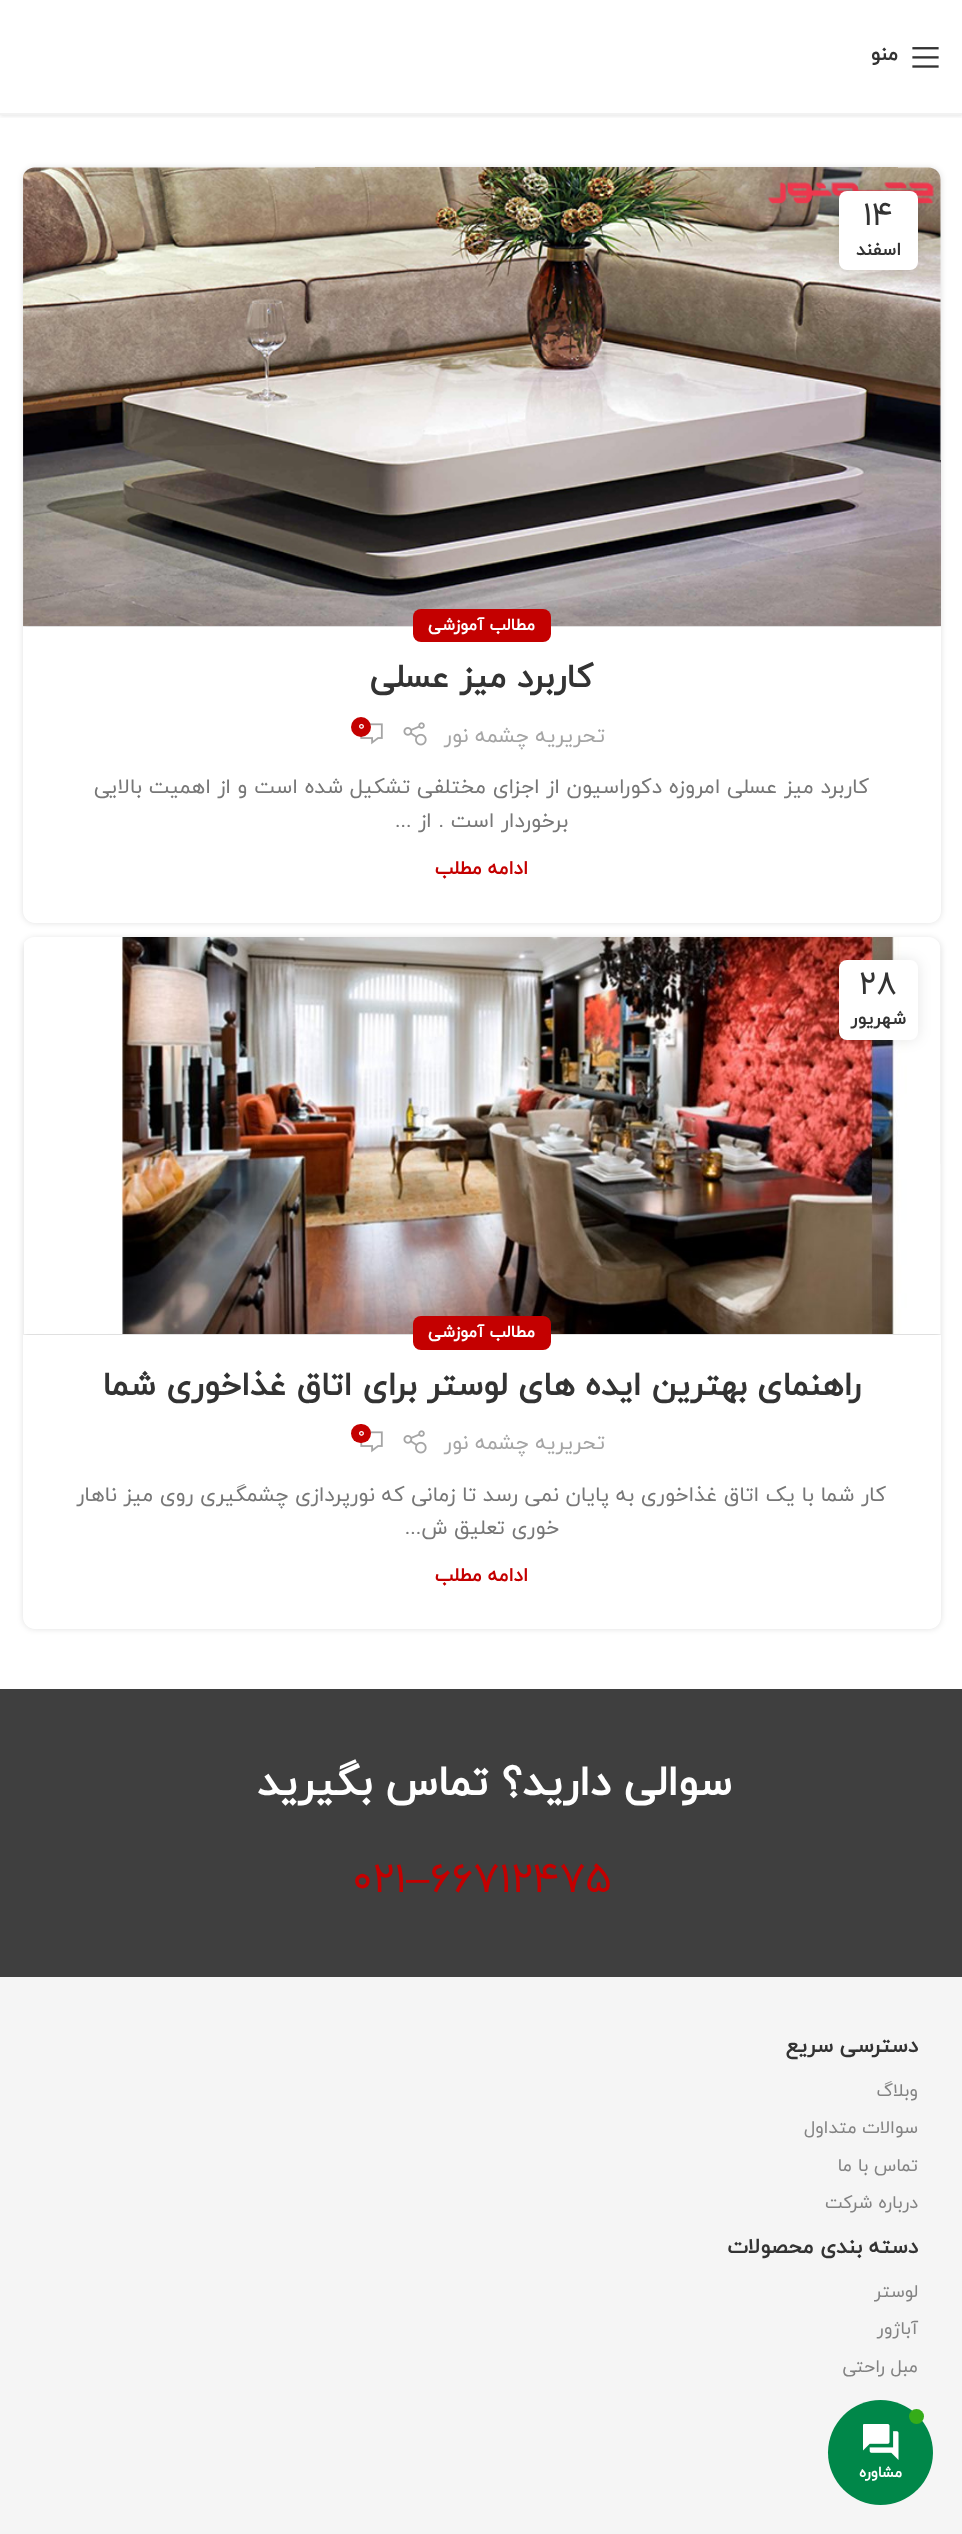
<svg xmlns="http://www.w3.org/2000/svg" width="962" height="2534">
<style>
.a{font:bold 20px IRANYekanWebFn;direction:rtl;fill:#333}
.b{font:33px IRANYekanWebFn;fill:#333}
.c{font:bold 18px IRANYekanWebFn;direction:rtl;fill:#333}
.d{font:bold 16.75px IRANYekanWebFn;direction:rtl;fill:#fff}
.e{font:bold 33px IRANYekanWebFn;direction:rtl;fill:#333}
.f{font:14px IRANYekanWebFn;fill:#fff}
.g{font:21px IRANYekanWebFn;direction:rtl;fill:#a5a5a5}
.h{font:21px IRANYekanWebFn;direction:rtl;fill:#777}
.i{font:bold 19px IRANYekanWebFn;direction:rtl;fill:#c40000}
.j{font:bold 42px IRANYekanWebFn;direction:rtl;fill:#fff}
.k{font:42px IRANYekanWebFn;fill:#c40000}
.l{font:42px Liberation Sans;fill:#c40000}
.m{font:bold 21px IRANYekanWebFn;direction:rtl;fill:#333}
.n{font:18px IRANYekanWebFn;direction:rtl;fill:#838383}
.o{font:bold 15px IRANYekanWebFn;direction:rtl;fill:#fff}
</style>
<defs>
<clipPath id="clip1"><path d="M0 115h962v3H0z"/></clipPath>
</defs>
<rect width="100%" height="100%" fill="#fff"/>
<g clip-path="url(#clip1)">
<path fill="#0000001a" filter="blur(2px)" d="M0 2h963v114H0z"/>
</g>
<path fill="#f2f2f2" d="M0 113h962v2H0z"/>
<image href="1.png" x="912" y="47" width="27" height="21"/>
<rect fill="#0000001f" filter="blur(3px)" x="23" y="168" width="918" height="755" rx="12"/>
<image href="2.png" x="23" y="167" width="918" height="459"/>
<rect fill="#0000001a" filter="blur(7px)" x="839" y="191" width="79" height="79" rx="8"/>
<rect fill="#fff" x="839" y="191" width="79" height="79" rx="8"/>
<path fill="#fff" d="M23 627h918v284c0 6.5-5.5 12-12 12h-894c-6.5 0-12-5.5-12-12z"/>
<rect fill="#c40000" x="413" y="609" width="138" height="33" rx="8"/>
<image href="3.png" x="403" y="722" width="24" height="24"/>
<image href="4.png" x="360" y="723" width="23" height="22"/>
<circle fill="#c40000" cx="361" cy="727" r="10"/>
<rect fill="#0000001f" filter="blur(3px)" x="23" y="938" width="918" height="691" rx="12"/>
<image href="5.png" x="24" y="937" width="917" height="397"/>
<rect fill="#0000001a" filter="blur(7px)" x="839" y="960" width="79" height="80" rx="8"/>
<rect fill="#fff" x="839" y="960" width="79" height="80" rx="8"/>
<path fill="#fff" d="M23 1335h918v282c0 6.5-5.5 12-12 12h-894c-6.5 0-12-5.5-12-12z"/>
<rect fill="#c40000" x="413" y="1316" width="138" height="34" rx="8"/>
<image href="3.png" x="403" y="1430" width="24" height="24"/>
<image href="4.png" x="360" y="1431" width="23" height="22"/>
<rect fill="#c40000" x="351" y="1424" width="20" height="19" rx="9.5"/>
<path fill="#3f3f3f" d="M0 1689h962v288H0z"/>
<path fill="#f5f5f5" d="M0 1977h962v557H0z"/>
<circle fill="#008749" cx="880.5" cy="2452.5" r="52.5"/>
<circle fill="#35ac19" cx="916.5" cy="2416.5" r="7.5"/>
<image href="6.png" x="863" y="2424" width="36" height="36"/>
<text class="a" x="898" y="60">منو</text>
<text class="b" x="863" y="225">۱۴</text>
<text class="c" x="901" y="255">اسفند</text>
<text class="d" x="535" y="630">مطالب آموزشی</text>
<text class="e" x="593" y="687">کاربرد میز عسلی</text>
<text class="f" x="358" y="730">۰</text>
<text class="g" x="605" y="742">تحریریه چشمه نور</text>
<text class="h" x="869" y="793">کاربرد میز عسلی امروزه دکوراسیون از اجزای مختلفی تشکیل شده است و از اهمیت بالایی</text>
<text class="h" x="568" y="827">برخوردار است . از ...</text>
<text class="i" x="528" y="874">ادامه مطلب</text>
<text class="b" x="859" y="994">۲۸</text>
<text class="c" x="906" y="1024">شهریور</text>
<text class="d" x="535" y="1337">مطالب آموزشی</text>
<text class="e" x="861" y="1395">راهنمای بهترین ایده های لوستر برای اتاق غذاخوری شما</text>
<text class="f" x="358" y="1437">۰</text>
<text class="g" x="605" y="1449">تحریریه چشمه نور</text>
<text class="h" x="886" y="1501">کار شما با یک اتاق غذاخوری به پایان نمی رسد تا زمانی که نورپردازی چشمگیری روی میز ناهار</text>
<text class="h" x="559" y="1534">خوری تعلیق ش...</text>
<text class="i" x="528" y="1581">ادامه مطلب</text>
<text class="j" x="732" y="1795">سوالی دارید؟ تماس بگیرید</text>
<text class="k" x="430" y="1892">66712475</text>
<text class="l" x="406" y="1892">–</text>
<text class="k" x="352" y="1892">021</text>
<text class="m" x="918" y="2052">دسترسی سریع</text>
<text class="n" x="918" y="2096">وبلاگ</text>
<text class="n" x="918" y="2133">سوالات متداول</text>
<text class="n" x="918" y="2171">تماس با ما</text>
<text class="n" x="918" y="2208">درباره شرکت</text>
<text class="m" x="918" y="2253">دسته بندی محصولات</text>
<text class="n" x="918" y="2297">لوستر</text>
<text class="n" x="918" y="2334">آباژور</text>
<text class="n" x="918" y="2372">مبل راحتی</text>
<text class="o" x="902" y="2477">مشاوره</text>
</svg>
